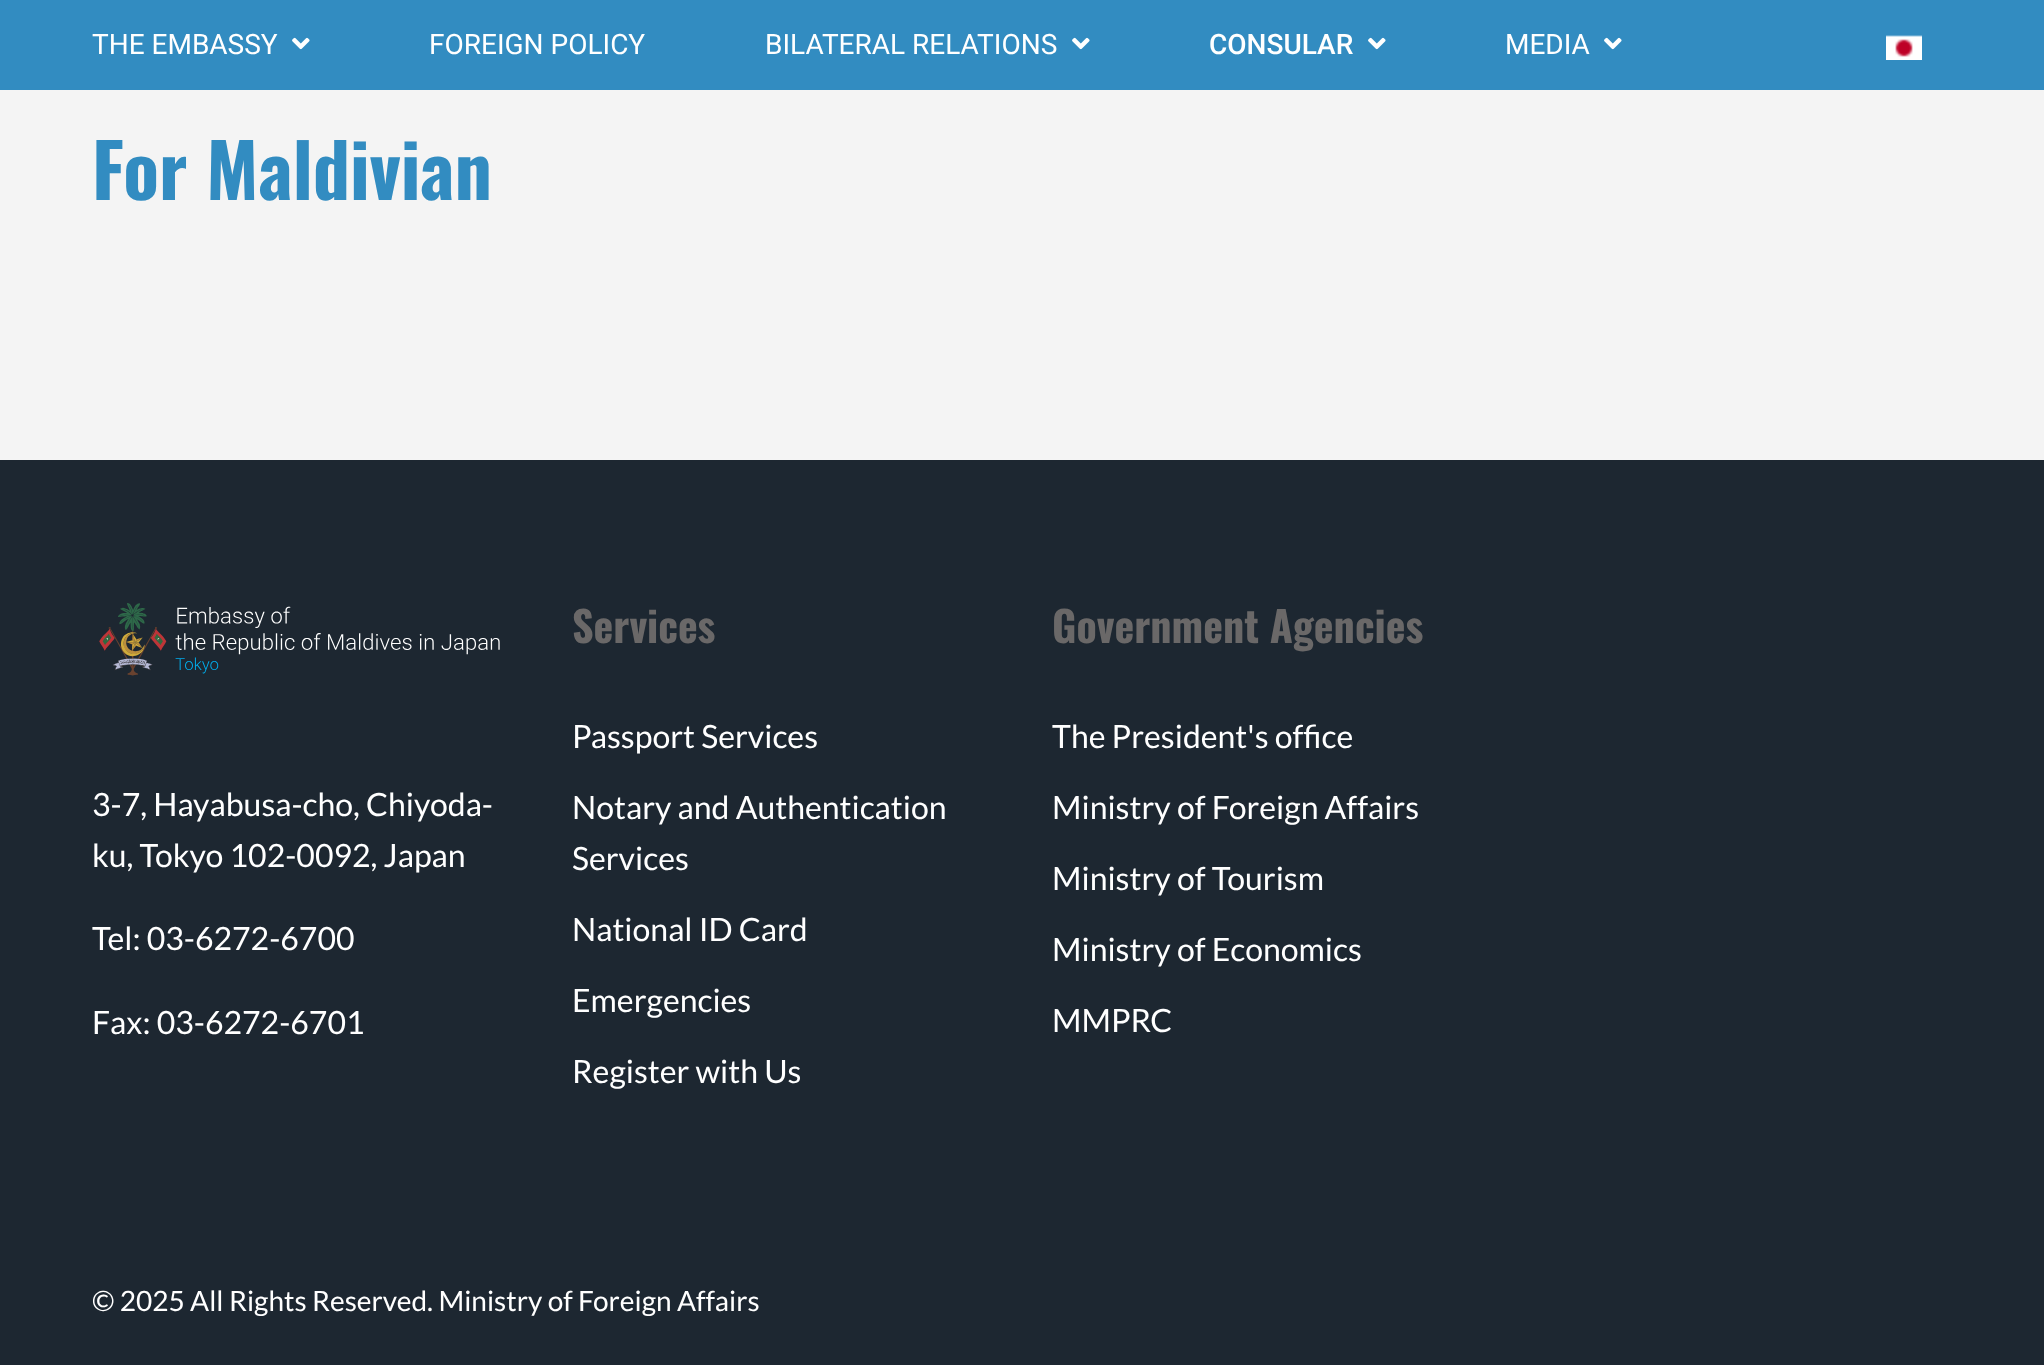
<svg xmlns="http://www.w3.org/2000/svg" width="2044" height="1365">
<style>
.a{font:28px Roboto;fill:#fff}
.b{font:500 28px Roboto;fill:#fff}
.c{font:bold 74px Oswald;fill:#328cc1}
.d{font:32px Lato;fill:#fff}
.e{font:bold 42px Oswald;fill:#6a6868}
.f{font:28px Lato;fill:#fff}
</style>
<rect width="100%" height="100%" fill="#f4f4f4"/>
<path fill="#328cc1" d="M0 0h2044v90H0z"/>
<image href="1.png" x="292" y="37" width="18" height="13"/>
<image href="1.png" x="1072" y="37" width="18" height="13"/>
<image href="1.png" x="1368" y="37" width="18" height="13"/>
<image href="1.png" x="1604" y="37" width="18" height="13"/>
<image href="2.png" x="1886" y="35" width="36" height="25"/>
<path fill="#1d2731" d="M0 460h2044v905H0z"/>
<image href="3.png" x="99" y="603" width="401" height="73"/>
<text class="a" x="92" y="54">THE EMBASSY</text>
<text class="a" x="429" y="54">FOREIGN POLICY</text>
<text class="a" x="765" y="54">BILATERAL RELATIONS</text>
<text class="b" x="1209" y="54">CONSULAR</text>
<text class="a" x="1505" y="54">MEDIA</text>
<text class="c" x="92" y="200">For Maldivian</text>
<text class="d" x="92" y="816">3-7, Hayabusa-cho, Chiyoda-</text>
<text class="d" x="92" y="867">ku, Tokyo 102-0092, Japan</text>
<text class="d" x="92" y="950">Tel: 03-6272-6700</text>
<text class="d" x="92" y="1034">Fax: 03-6272-6701</text>
<text class="e" x="572" y="643">Services</text>
<text class="d" x="572" y="748">Passport Services</text>
<text class="d" x="572" y="819">Notary and Authentication</text>
<text class="d" x="572" y="870">Services</text>
<text class="d" x="572" y="941">National ID Card</text>
<text class="d" x="572" y="1012">Emergencies</text>
<text class="d" x="572" y="1083">Register with Us</text>
<text class="e" x="1052" y="643">Government Agencies</text>
<text class="d" x="1052" y="748">The President's office</text>
<text class="d" x="1052" y="819">Ministry of Foreign Affairs</text>
<text class="d" x="1052" y="890">Ministry of Tourism</text>
<text class="d" x="1052" y="961">Ministry of Economics</text>
<text class="d" x="1052" y="1032">MMPRC</text>
<text class="f" x="92" y="1311">© 2025 All Rights Reserved. Ministry of Foreign Affairs</text>
</svg>
